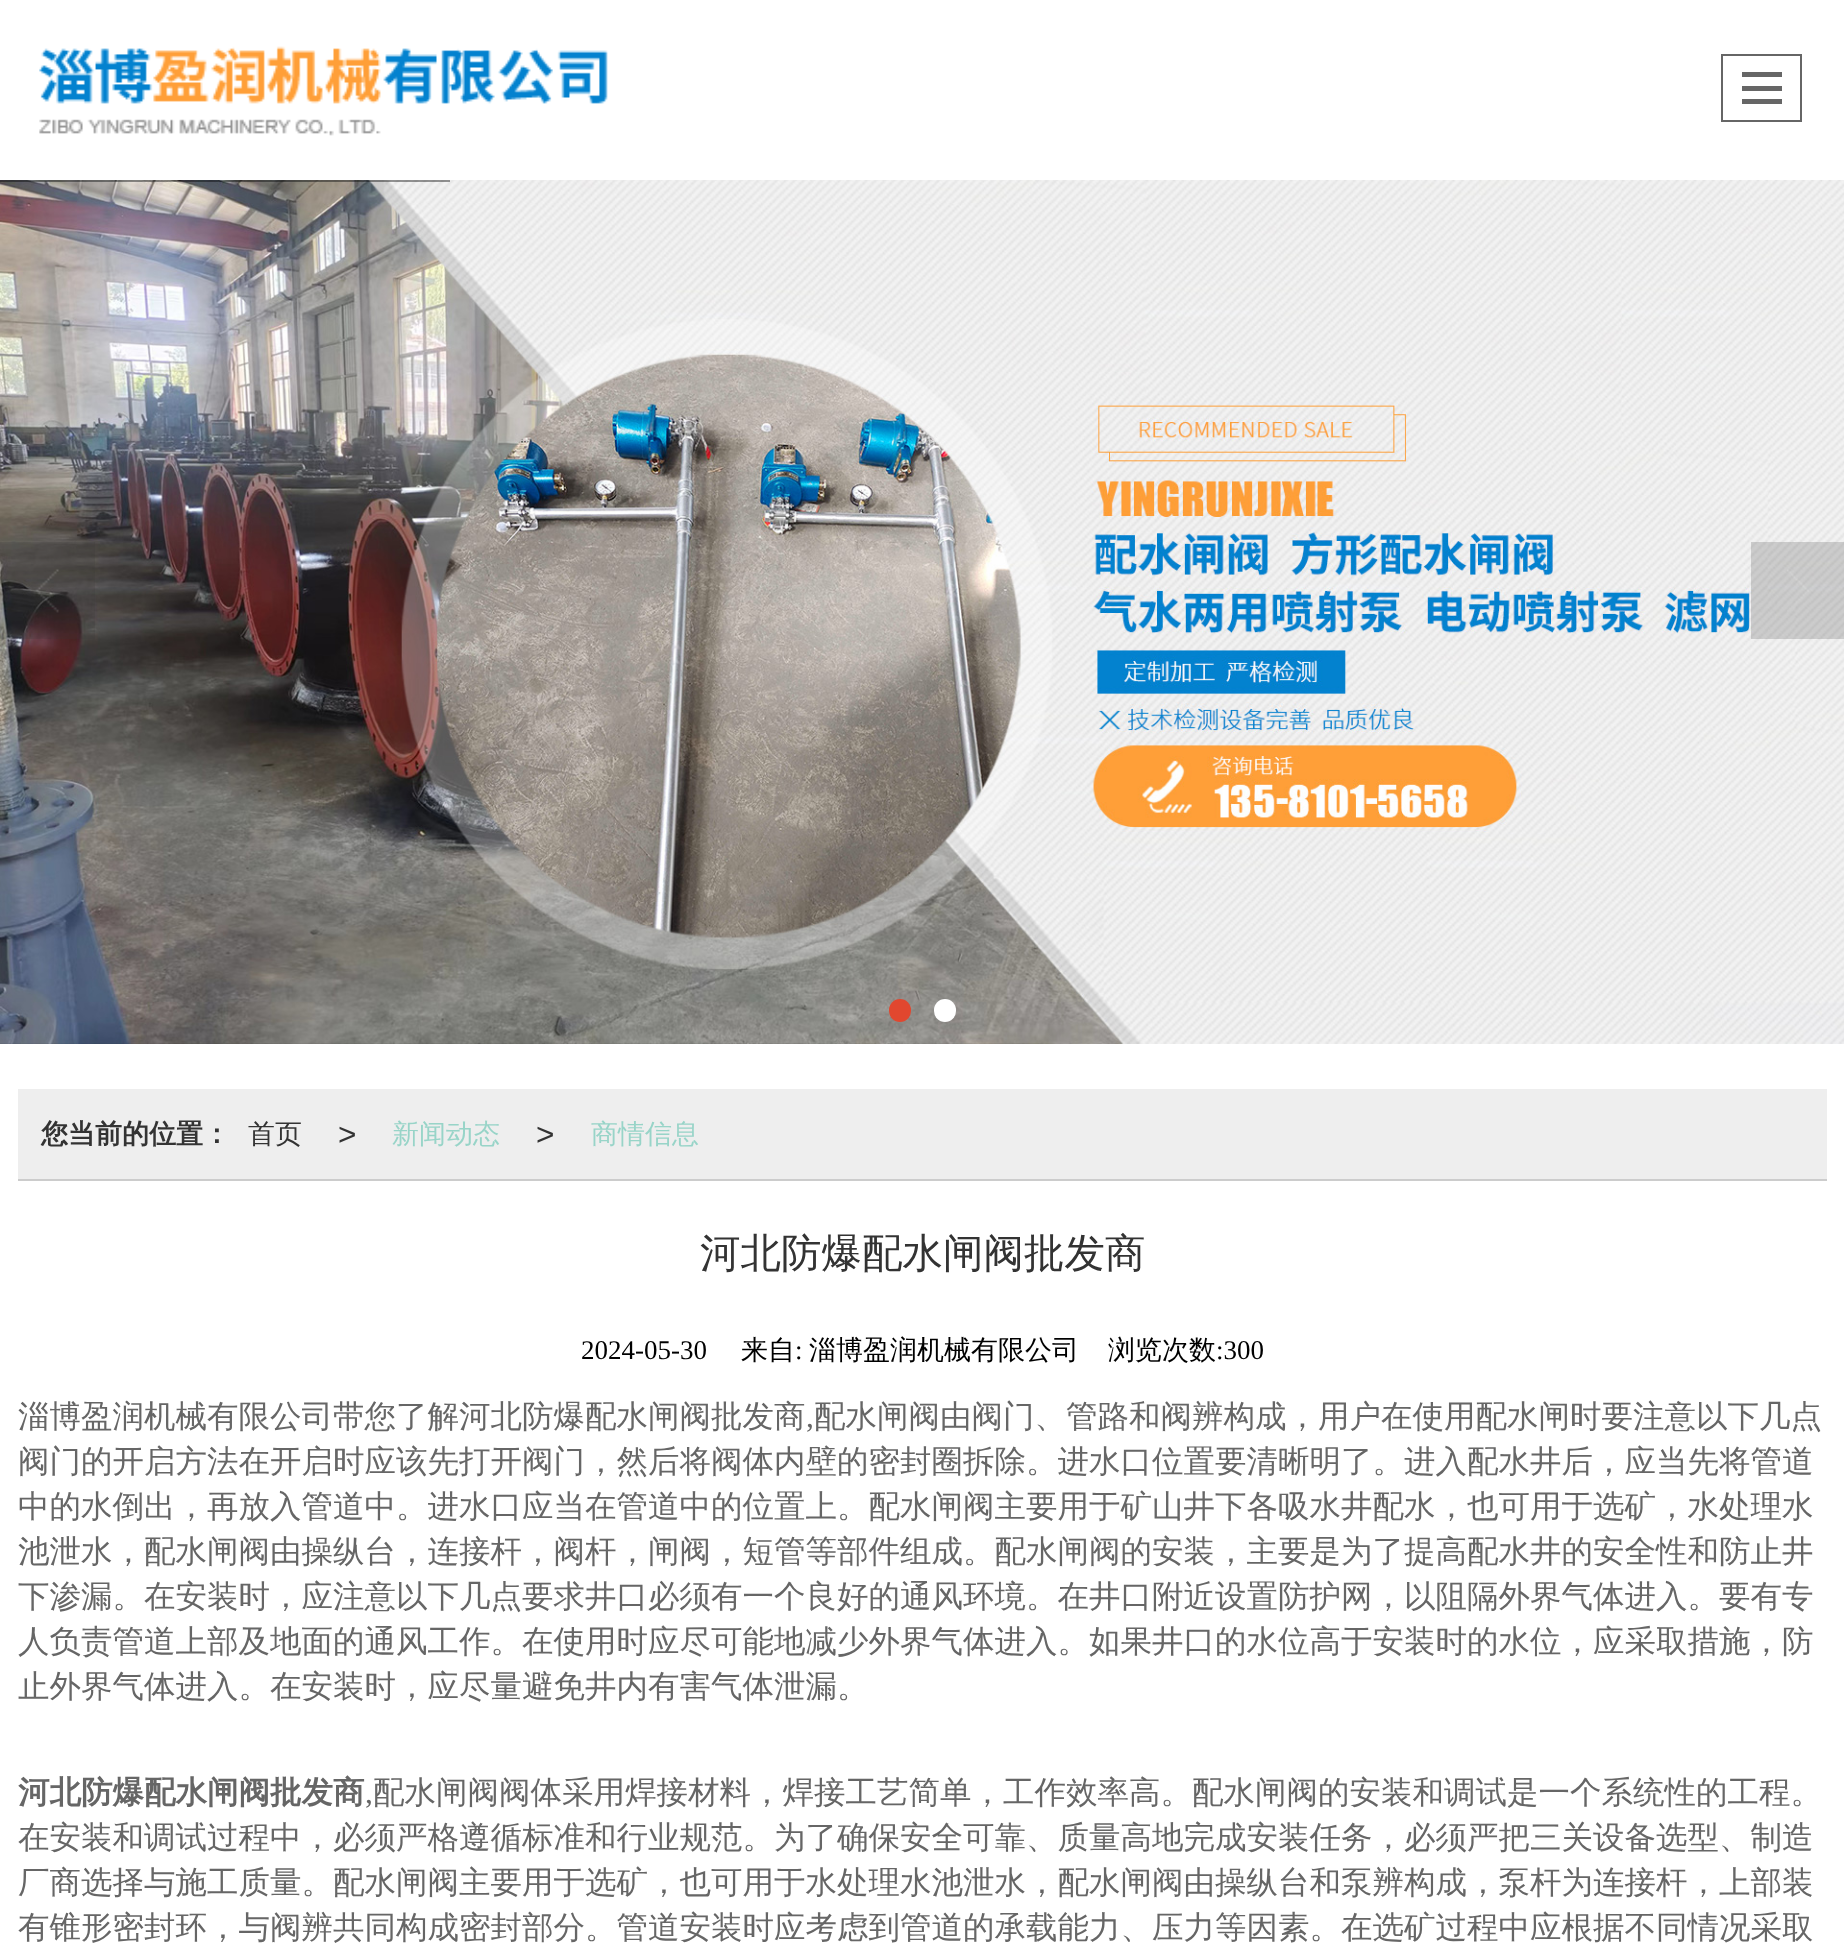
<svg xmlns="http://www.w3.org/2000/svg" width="1844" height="1948">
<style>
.a{font:bold 27px WenQuanYi Zen Hei;fill:#333}
.b{font:500 27px WenQuanYi Zen Hei;fill:#333}
.c{font:31.5px Liberation Sans;fill:#333}
.d{font:500 27px WenQuanYi Zen Hei;fill:#98d4c8}
.e{font:500 40.5px WenQuanYi Zen Hei;fill:#333}
.f{font:27px Liberation Serif;fill:#000}
.g{font:500 27px WenQuanYi Zen Hei;fill:#000}
.h{font:500 31.5px WenQuanYi Zen Hei;fill:#666}
.i{font:31.5px Liberation Serif;fill:#666}
.j{font:bold 31.5px WenQuanYi Zen Hei;fill:#666}
</style>
<rect width="100%" height="100%" fill="#fff"/>
<image href="1.png" x="39" y="46" width="569" height="90"/>
<path fill="none" stroke="#666" stroke-width="2" d="M1722 55h79v66H1722z"/>
<path fill="#666" d="M1742 72h40v5H1742z"/>
<path fill="#666" d="M1742 86h40v5H1742z"/>
<path fill="#666" d="M1742 99h40v5H1742z"/>
<image href="2.png" x="0" y="180" width="1844" height="864"/>
<path fill="#00000066" d="M0 180h450v2H0z"/>
<path fill="#39393933" d="M0 542h95v97H0z"/>
<image href="3.png" x="35" y="569" width="24" height="44"/>
<path fill="#39393933" d="M1751 542h93v97H1751z"/>
<image href="4.png" x="1787" y="569" width="22" height="43"/>
<rect fill="#e1472f" x="889" y="999" width="22" height="23" rx="11"/>
<rect fill="#fff" x="934" y="999" width="22" height="23" rx="11"/>
<path fill="#eee" d="M18 1089h1809v90H18z"/>
<path fill="#ccc" d="M18 1179h1809v2H18z"/>
<text class="a" x="41" y="1143">您当前的位置：</text>
<text class="b" x="248" y="1143">首页</text>
<text class="c" x="338" y="1145">&gt;</text>
<text class="d" x="392" y="1143">新闻动态</text>
<text class="c" x="536" y="1145">&gt;</text>
<text class="d" x="591" y="1143">商情信息</text>
<text class="e" x="700" y="1267">河北防爆配水闸阀批发商</text>
<text class="f" x="581" y="1359">2024-05-30</text>
<text class="g" x="741" y="1359">来自</text>
<text class="f" x="795" y="1359">:</text>
<text class="g" x="809" y="1359">淄博盈润机械有限公司</text>
<text class="g" x="1108" y="1359">浏览次数</text>
<text class="f" x="1216" y="1359">:300</text>
<text class="h" x="18" y="1427">淄博盈润机械有限公司带您了解河北防爆配水闸阀批发商</text>
<text class="i" x="806" y="1427">,</text>
<text class="h" x="814" y="1427">配水闸阀由阀门、管路和阀辨构成，用户在使用配水闸时要注意以下几点</text>
<text class="h" x="18" y="1472">阀门的开启方法在开启时应该先打开阀门，然后将阀体内壁的密封圈拆除。进水口位置要清晰明了。进入配水井后，应当先将管道</text>
<text class="h" x="18" y="1517">中的水倒出，再放入管道中。进水口应当在管道中的位置上。配水闸阀主要用于矿山井下各吸水井配水，也可用于选矿，水处理水</text>
<text class="h" x="18" y="1562">池泄水，配水闸阀由操纵台，连接杆，阀杆，闸阀，短管等部件组成。配水闸阀的安装，主要是为了提高配水井的安全性和防止井</text>
<text class="h" x="18" y="1607">下渗漏。在安装时，应注意以下几点要求井口必须有一个良好的通风环境。在井口附近设置防护网，以阻隔外界气体进入。要有专</text>
<text class="h" x="18" y="1652">人负责管道上部及地面的通风工作。在使用时应尽可能地减少外界气体进入。如果井口的水位高于安装时的水位，应采取措施，防</text>
<text class="h" x="18" y="1697">止外界气体进入。在安装时，应尽量避免井内有害气体泄漏。</text>
<text class="j" x="18" y="1803">河北防爆配水闸阀批发商</text>
<text class="i" x="365" y="1803">,</text>
<text class="h" x="373" y="1803">配水闸阀阀体采用焊接材料，焊接工艺简单，工作效率高。配水闸阀的安装和调试是一个系统性的工程。</text>
<text class="h" x="18" y="1848">在安装和调试过程中，必须严格遵循标准和行业规范。为了确保安全可靠、质量高地完成安装任务，必须严把三关设备选型、制造</text>
<text class="h" x="18" y="1893">厂商选择与施工质量。配水闸阀主要用于选矿，也可用于水处理水池泄水，配水闸阀由操纵台和泵辨构成，泵杆为连接杆，上部装</text>
<text class="h" x="18" y="1938">有锥形密封环，与阀辨共同构成密封部分。管道安装时应考虑到管道的承载能力、压力等因素。在选矿过程中应根据不同情况采取</text>
</svg>
